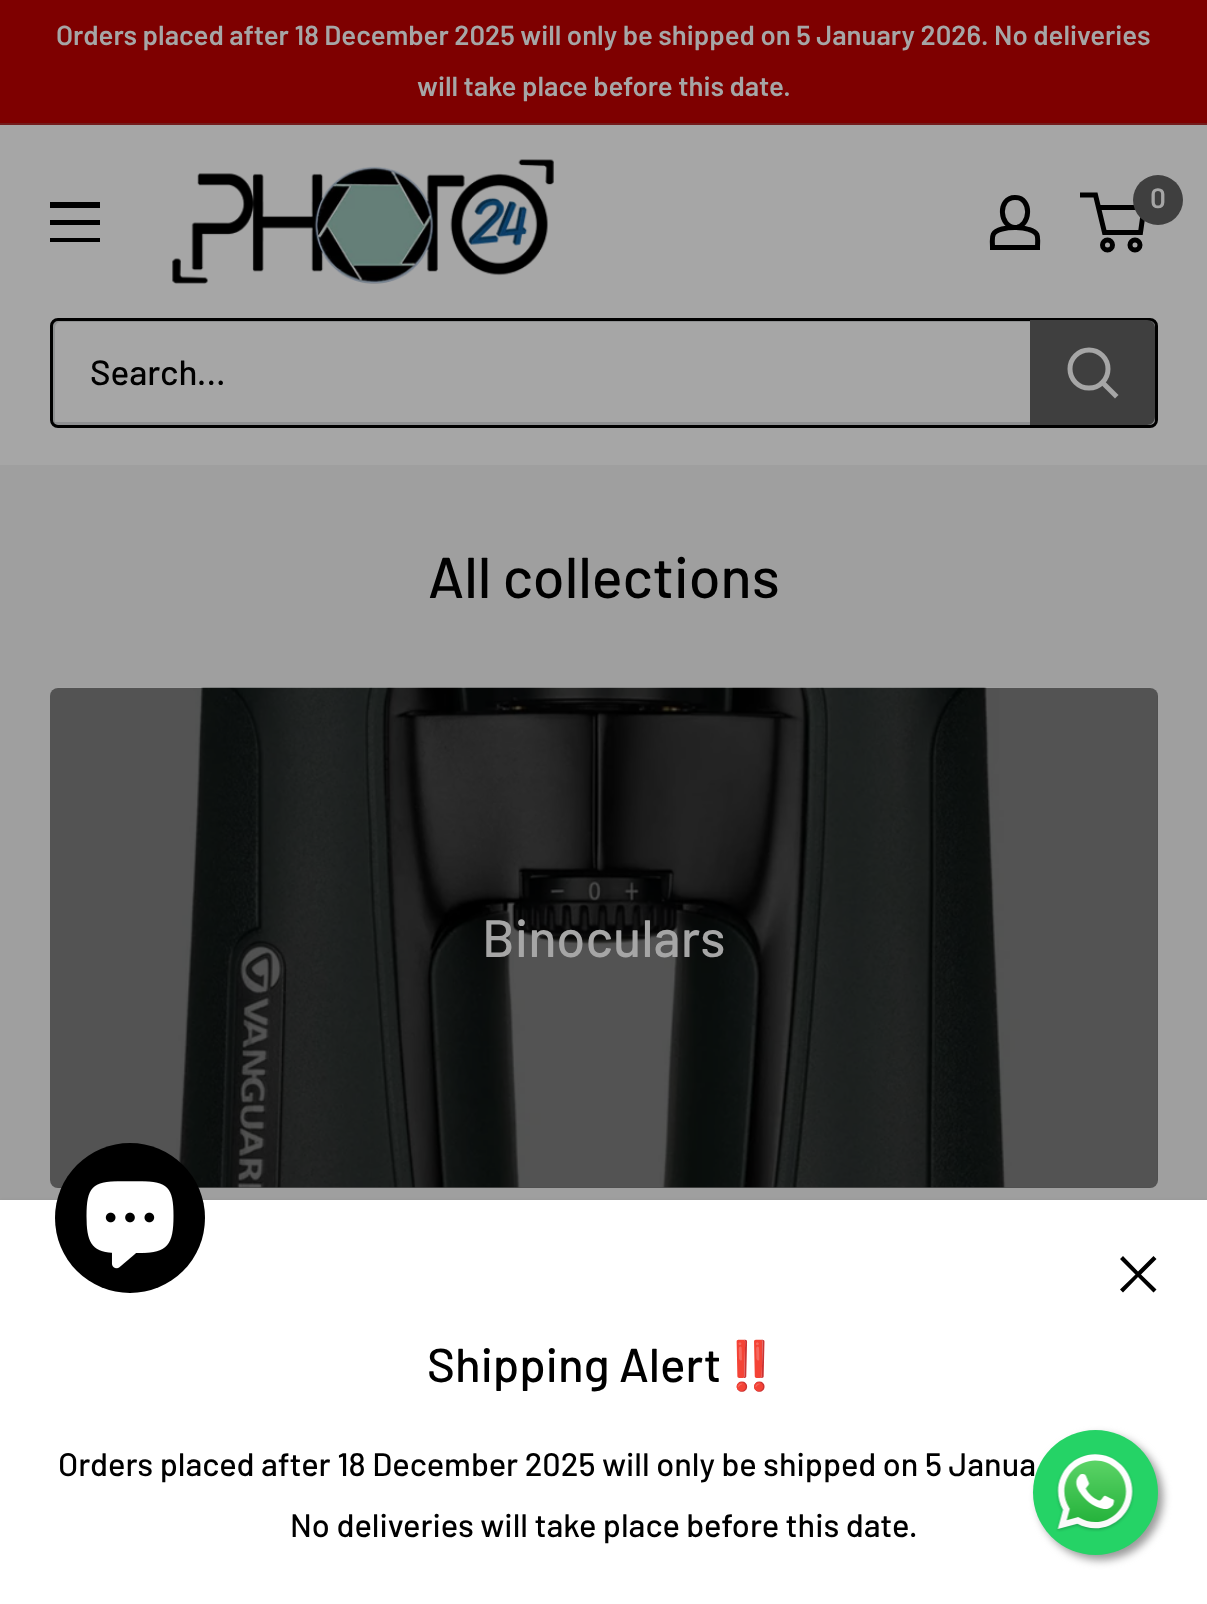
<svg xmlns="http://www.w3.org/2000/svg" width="1207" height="1604">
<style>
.a{font:600 27.5px Barlow;fill:#a6a6a6}
.b{font:600 28px Barlow;fill:#a6a6a6}
.c{font:500 35px Barlow;fill:#000}
.d{font:500 57.5px Barlow;fill:#000}
.e{font:500 52.5px Barlow;fill:#a6a6a6}
.f{font:500 47.5px Barlow;fill:#000}
.g{font:47.5px Noto Color Emoji;fill:#000}
.h{font:500 32.5px Barlow;fill:#000}
</style>
<rect width="100%" height="100%" fill="#9f9f9f"/>
<path fill="#7e0000" d="M0 0h1207v123H0z"/>
<path fill="#731d1d" d="M0 123h1207v2H0z"/>
<path fill="#a6a6a6" d="M0 125h1207v340H0z"/>
<image href="1.png" x="172" y="159" width="382" height="125"/>
<path fill="none" stroke="#000" stroke-width="5" d="M1015 227.5c4.5 0 9.5 .5 14 2c11 3 8.5 8.5 8.5 18h-45c0-10-2.5-15.5 9.5-18.5c4-1 8.5-1.5 13-1.5zm0 0c-15.5 0-18-30 0-30c18 0 15.5 30 0 30z"/>
<circle fill="none" stroke="#000" stroke-width="5" cx="1107.5" cy="245" r="5"/>
<circle fill="none" stroke="#000" stroke-width="5" cx="1135" cy="245" r="5"/>
<path fill="none" stroke="#000" stroke-width="5" d="M1098.5 207.5h45.5l-3.5 25h-36l-9-37.5h-15.5"/>
<circle fill="#3f3f3f" cx="1158" cy="200" r="25"/>
<path fill="#000" fill-rule="evenodd" d="M50 238h50v4h-50zm0-36h50v6h-50zm0 18h50v5h-50z"/>
<path fill="#8f9092" d="M53 422c1 2 3 3 5 3h1092c3 0 5-2 5-5v-95c0-2-1-4-4-5l1 2v96c0 2-2 4-4 4z"/>
<path fill="#5a5f624d" d="M60 322h1092l2 1c0-2-2-3-4-3h-1092c-3 0-5 2-5 5v95c0 2 1 3 2 4v-2v-94c0-3 2-6 5-6z"/>
<rect fill="none" stroke="#000" stroke-width="3" x="51.5" y="319.5" width="1105" height="107" rx="6.5"/>
<path fill="#3f3f3f" d="M1030 320h117c4.5 0 8 3.5 8 8v89c0 4.5-3.5 8-8 8h-117z"/>
<path fill="none" stroke="#a6a6a6" stroke-width="5" stroke-linecap="square" d="M1115 395l-12.5-12.5"/>
<circle fill="none" stroke="#a6a6a6" stroke-width="5" cx="1089" cy="369" r="19"/>
<image href="2.png" x="50" y="687" width="1107" height="501"/>
<rect fill="#00000080" x="50" y="688" width="1108" height="500" rx="8"/>
<path fill="#0000004d" filter="blur(2.5px)" d="M0 1203h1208v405H0z"/>
<path fill="#fff" d="M0 1200h1207v404H0z"/>
<circle fill="#000" cx="130" cy="1218" r="75"/>
<image href="3.png" x="86" y="1181" width="88" height="88"/>
<path fill="#000" fill-rule="evenodd" d="M1138 1271.5l15.5-15.5l3 3l-15.5 15.5l15.5 15l-3 3l-15.5-15.5l-15 15.5l-3-3l15.5-15l-15.5-15.5l3-3z"/>
<rect fill="#999" filter="blur(4px)" x="1038" y="1435" width="125" height="125" rx="62.5"/>
<text class="a" x="56" y="45">Orders placed after 18 December 2025 will only be shipped on 5 January 2026. No deliveries</text>
<text class="a" x="417" y="96">will take place before this date.</text>
<text class="b" x="1150" y="208">0</text>
<text class="c" x="90" y="385">Search...</text>
<text class="d" x="428" y="598">All collections</text>
<text class="e" x="482" y="957">Binoculars</text>
<text class="f" x="427" y="1382">Shipping Alert</text>
<text class="g" x="721" y="1382">‼️</text>
<text class="h" x="58" y="1476">Orders placed after 18 December 2025 will only be shipped on 5 Janua</text>
<text class="h" x="290" y="1537">No deliveries will take place before this date.</text>
<circle fill="#25d366" cx="1095.5" cy="1492.5" r="62.5"/>
<image href="4.png" x="1056" y="1454" width="78" height="78"/>
</svg>
